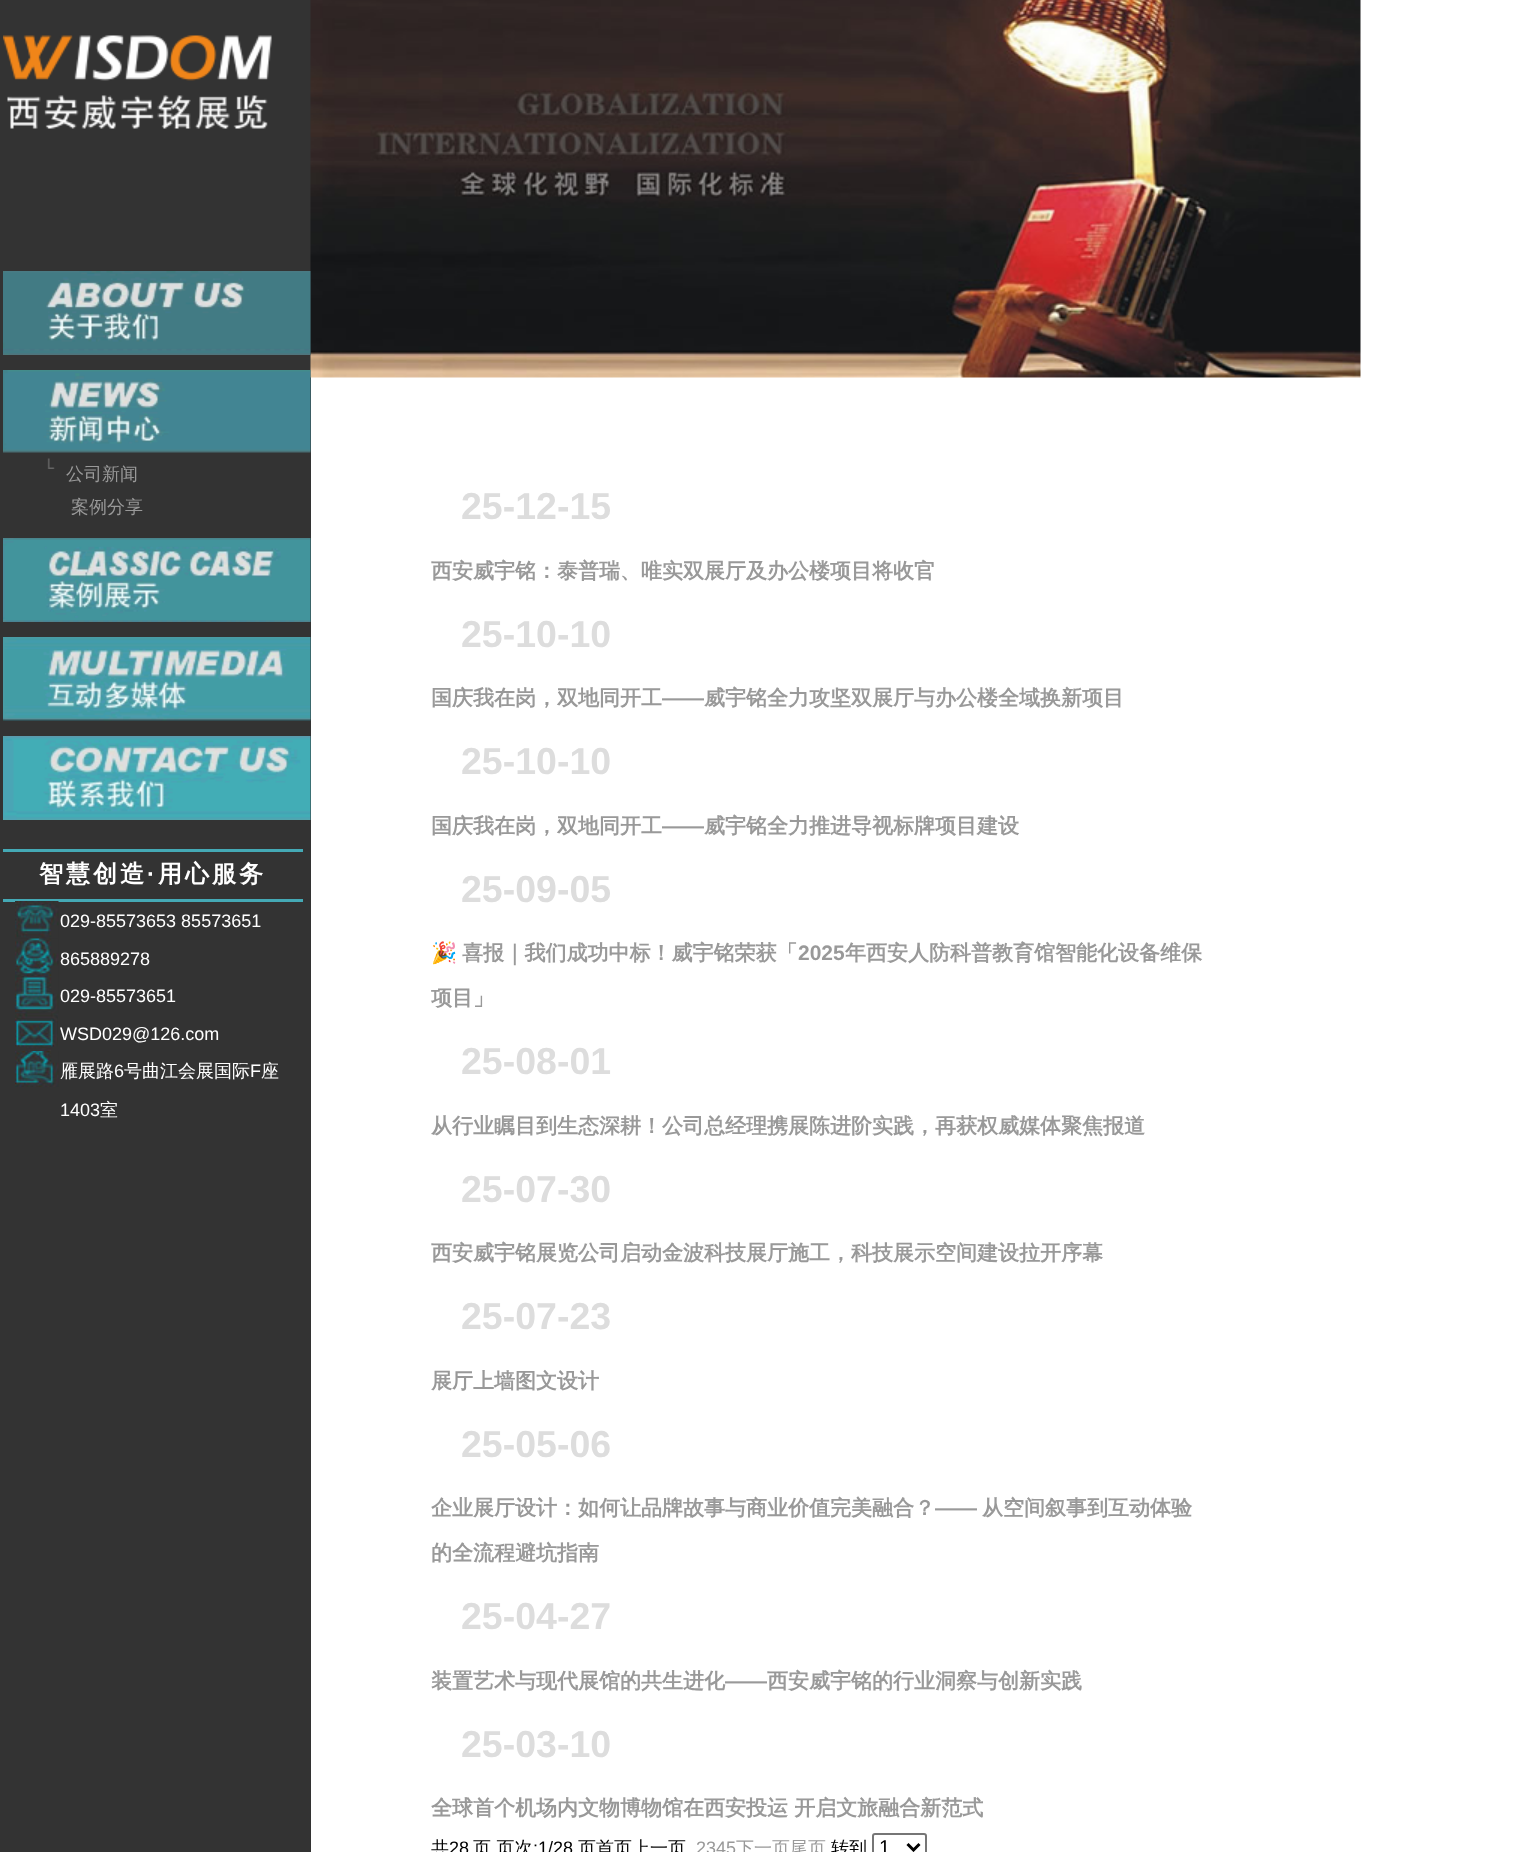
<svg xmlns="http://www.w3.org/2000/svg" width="1520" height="1852">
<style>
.a{font:500 18px WenQuanYi Zen Hei;fill:#999}
.b{font:bold 24px WenQuanYi Zen Hei;letter-spacing:3px;fill:#fff}
.c{font:bold 24px Liberation Sans;letter-spacing:3px;fill:#fff}
.d{font:18px Liberation Sans;fill:#fff}
.e{font:500 18px WenQuanYi Zen Hei;fill:#fff}
.f{font:bold 37.5px Liberation Sans;fill:#ddd}
.g{font:bold 21px WenQuanYi Zen Hei;fill:#999}
.h{font:bold 21px Liberation Sans;fill:#999}
.i{font:bold 21px Noto Color Emoji;fill:#999}
.j{font:500 18px WenQuanYi Zen Hei;fill:#000}
.k{font:18px Liberation Sans;fill:#000}
.l{font:18px Liberation Sans;fill:#999}
.m{font:20px Liberation Sans;fill:#000}
</style>
<rect width="100%" height="100%" fill="#fff"/>
<path fill="#333" d="M0 0h311v1852H0z"/>
<image href="1.png" x="3" y="35" width="269" height="94"/>
<image href="13.png" x="310" y="0" width="1051" height="378"/>
<image href="2.png" x="3" y="271" width="308" height="84"/>
<image href="3.png" x="3" y="370" width="308" height="83"/>
<image href="4.png" x="47" y="458" width="8" height="11"/>
<image href="5.png" x="3" y="538" width="308" height="84"/>
<image href="6.png" x="3" y="637" width="308" height="84"/>
<image href="7.png" x="3" y="736" width="308" height="84"/>
<path fill="#44a9b5" d="M3 849h300v3H3z"/>
<path fill="#44a9b5" d="M3 899h300v3H3z"/>
<image href="8.png" x="15" y="901" width="44" height="37"/>
<image href="9.png" x="15" y="938" width="44" height="38"/>
<image href="10.png" x="15" y="976" width="44" height="38"/>
<image href="11.png" x="15" y="1013" width="43" height="38"/>
<image href="12.png" x="15" y="1051" width="44" height="36"/>
<rect fill="none" stroke="#767676" stroke-width="2" x="873" y="1834" width="53" height="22" rx="2"/>
<path fill="none" stroke="#000" stroke-width="3" d="M907.5 1844l6 6l6-6"/>
<text class="a" x="66" y="480">公司新闻</text>
<text class="a" x="71" y="513">案例分享</text>
<text class="b" x="39" y="882">智慧创造</text>
<text class="c" x="147" y="882">·</text>
<text class="b" x="158" y="882">用心服务</text>
<text class="d" x="60" y="927">029-85573653 85573651</text>
<text class="d" x="60" y="965">865889278</text>
<text class="d" x="60" y="1002">029-85573651</text>
<text class="d" x="60" y="1040">WSD029@126.com</text>
<text class="e" x="60" y="1077">雁展路</text>
<text class="d" x="114" y="1077">6</text>
<text class="e" x="124" y="1077">号曲江会展国际</text>
<text class="d" x="250" y="1077">F</text>
<text class="e" x="261" y="1077">座</text>
<text class="d" x="60" y="1116">1403</text>
<text class="e" x="100" y="1116">室</text>
<text class="f" x="461" y="519">25-12-15</text>
<text class="g" x="431" y="578">西安威宇铭：泰普瑞、唯实双展厅及办公楼项目将收官</text>
<text class="f" x="461" y="647">25-10-10</text>
<text class="g" x="431" y="705">国庆我在岗，双地同开工</text>
<text class="h" x="662" y="705">——</text>
<text class="g" x="704" y="705">威宇铭全力攻坚双展厅与办公楼全域换新项目</text>
<text class="f" x="461" y="774">25-10-10</text>
<text class="g" x="431" y="833">国庆我在岗，双地同开工</text>
<text class="h" x="662" y="833">——</text>
<text class="g" x="704" y="833">威宇铭全力推进导视标牌项目建设</text>
<text class="f" x="461" y="902">25-09-05</text>
<text class="i" x="431" y="960">🎉</text>
<text class="g" x="462" y="960">喜报｜我们成功中标！威宇铭荣获「</text>
<text class="h" x="798" y="960">2025</text>
<text class="g" x="845" y="960">年西安人防科普教育馆智能化设备维保</text>
<text class="g" x="431" y="1005">项目」</text>
<text class="f" x="461" y="1074">25-08-01</text>
<text class="g" x="431" y="1133">从行业瞩目到生态深耕！公司总经理携展陈进阶实践，再获权威媒体聚焦报道</text>
<text class="f" x="461" y="1202">25-07-30</text>
<text class="g" x="431" y="1260">西安威宇铭展览公司启动金波科技展厅施工，科技展示空间建设拉开序幕</text>
<text class="f" x="461" y="1329">25-07-23</text>
<text class="g" x="431" y="1388">展厅上墙图文设计</text>
<text class="f" x="461" y="1457">25-05-06</text>
<text class="g" x="431" y="1515">企业展厅设计：如何让品牌故事与商业价值完美融合？</text>
<text class="h" x="935" y="1515">——</text>
<text class="g" x="982" y="1515">从空间叙事到互动体验</text>
<text class="g" x="431" y="1560">的全流程避坑指南</text>
<text class="f" x="461" y="1629">25-04-27</text>
<text class="g" x="431" y="1688">装置艺术与现代展馆的共生进化</text>
<text class="h" x="725" y="1688">——</text>
<text class="g" x="767" y="1688">西安威宇铭的行业洞察与创新实践</text>
<text class="f" x="461" y="1757">25-03-10</text>
<text class="g" x="431" y="1815">全球首个机场内文物博物馆在西安投运 开启文旅融合新范式</text>
<text class="j" x="431" y="1854">共</text>
<text class="k" x="449" y="1854">28</text>
<text class="j" x="473" y="1854">页 页次</text>
<text class="k" x="533" y="1854">:1/28</text>
<text class="j" x="578" y="1854">页首页上一页</text>
<text class="l" x="696" y="1854">2345</text>
<text class="a" x="736" y="1854">下一页尾页</text>
<text class="j" x="831" y="1854">转到</text>
<text class="m" x="879" y="1854">1</text>
</svg>
